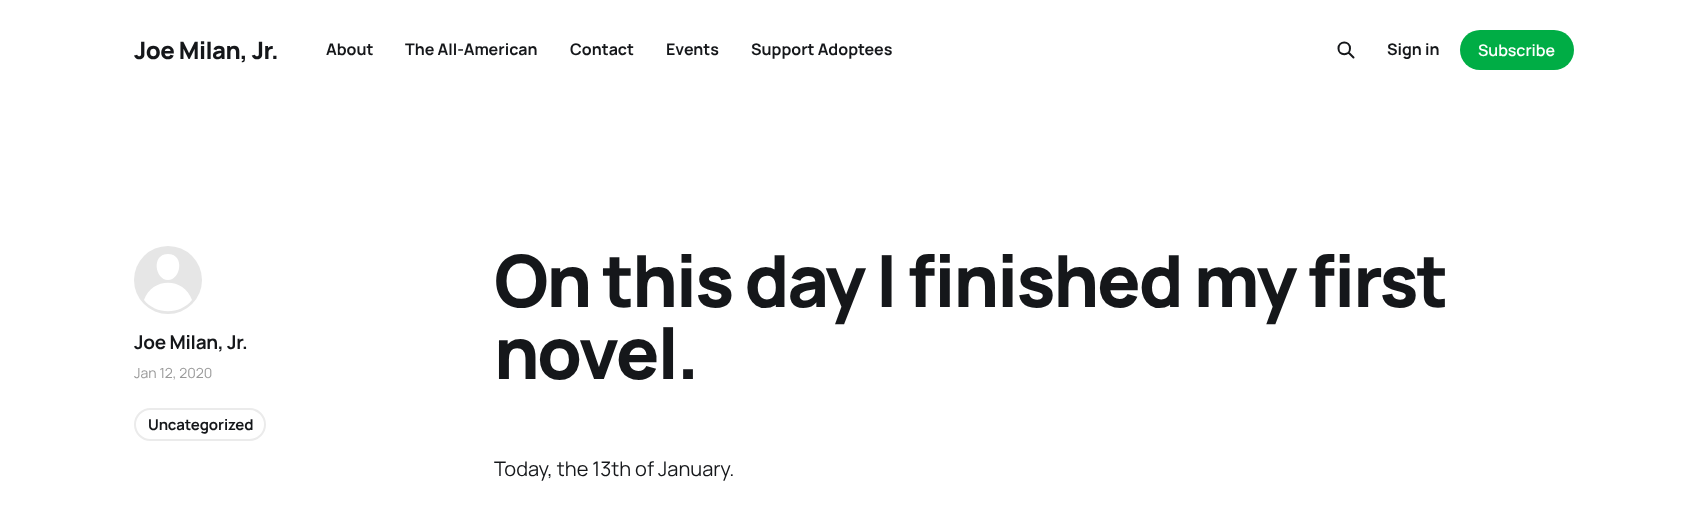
<svg xmlns="http://www.w3.org/2000/svg" width="1707" height="525">
<style>
.a{font:800 24px Manrope;letter-spacing:-0.5px;fill:#15171a}
.b{font:bold 16px Manrope;fill:#15171a}
.c{font:600 16px Manrope;fill:#fff}
.d{font:bold 19px Manrope;letter-spacing:-0.25px;fill:#15171a}
.e{font:14px Manrope;fill:#999}
.f{font:bold 15px Manrope;letter-spacing:-0.1px;fill:#15171a}
.g{font:800 72px Manrope;letter-spacing:-2.15px;fill:#15171a}
.h{font:20px Manrope;fill:#15171a}
</style>
<rect width="100%" height="100%" fill="#fff"/>
<path fill="none" stroke="#15171a" stroke-width="2" stroke-linecap="round" stroke-linejoin="round" d="M1353.5 57.5l-5-5zm-3.5-9c0 7.5-11.5 7.5-11.5 0c0-8 11.5-8 11.5 0z"/>
<rect fill="#00ad45" x="1460" y="30" width="114" height="40" rx="20"/>
<circle fill="#e6e6e6" cx="168" cy="280" r="34"/>
<path fill="#fff" fill-rule="evenodd" d="M144 300c8-23 40-23 48 0c-12 15-36 15-48 0zm24-20c13 0 17-26 0-26c-17 0-13 26 0 26z"/>
<rect fill="none" stroke="#ebebeb" stroke-width="2" x="135" y="409" width="130" height="31" rx="15.5"/>
<text class="a" x="134" y="59">Joe Milan, Jr.</text>
<text class="b" x="326" y="55">About</text>
<text class="b" x="405" y="55">The All-American</text>
<text class="b" x="570" y="55">Contact</text>
<text class="b" x="666" y="55">Events</text>
<text class="b" x="751" y="55">Support Adoptees</text>
<text class="b" x="1387" y="55">Sign in</text>
<text class="c" x="1478" y="56">Subscribe</text>
<text class="d" x="134" y="349">Joe Milan, Jr.</text>
<text class="e" x="134" y="378">Jan 12, 2020</text>
<text class="f" x="148" y="430">Uncategorized</text>
<text class="g" x="494" y="307">On this day I finished my first</text>
<text class="g" x="494" y="379">novel.</text>
<text class="h" x="494" y="476">Today, the 13th of January.</text>
</svg>
